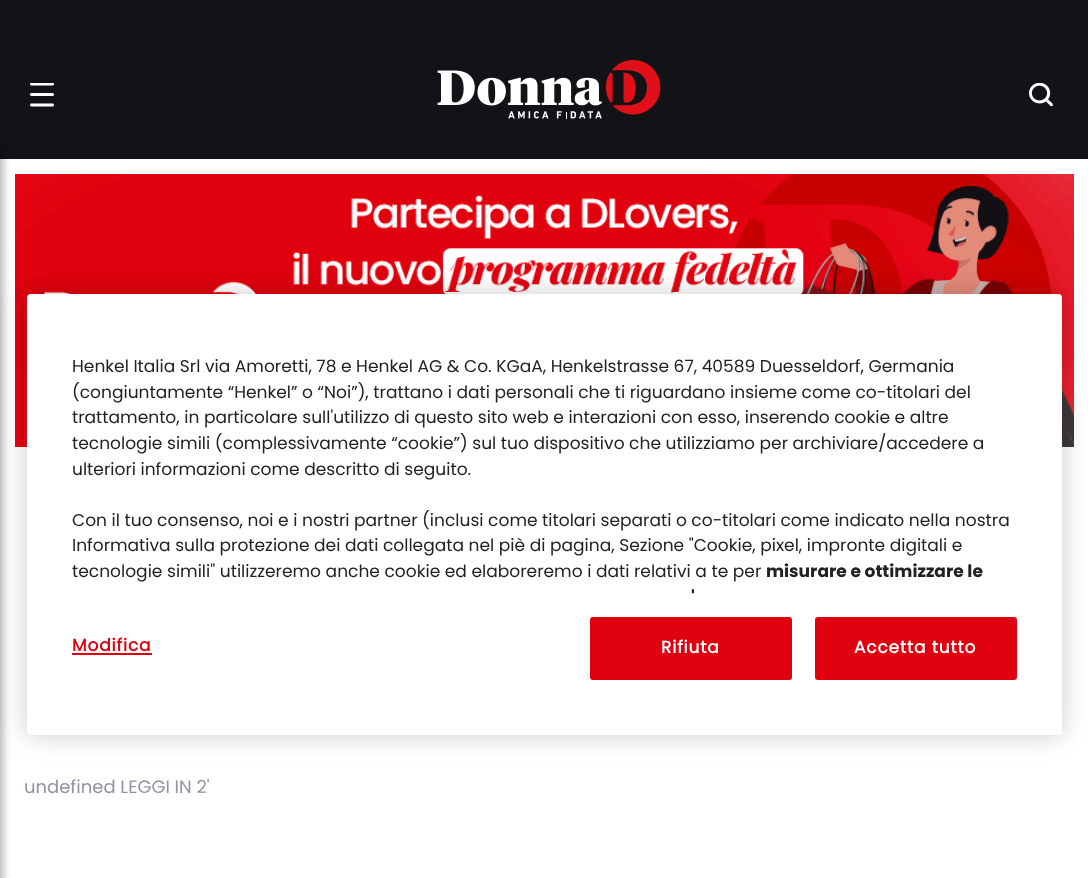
<svg xmlns="http://www.w3.org/2000/svg" width="1088" height="878">
<style>
.a{font:17.07px Poppins;fill:#222}
.b{font:bold 17.07px 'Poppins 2';fill:#222}
.c{font:bold 17.07px Poppins;letter-spacing:0.8px;fill:#e1000f}
.d{font:bold 17.07px Poppins;letter-spacing:0.8px;fill:#fff}
.e{font:18px Poppins;fill:#9292a6}
</style>
<rect width="100%" height="100%" fill="#fff"/>
<image href="4.png" x="15" y="174" width="1059" height="273"/>
<rect fill="#00000033" filter="blur(13.5px)" x="27" y="294" width="1035" height="441" rx="4"/>
<rect fill="#fff" x="27" y="294" width="1035" height="441" rx="4"/>
<path fill="#e1000f" d="M72 653h80v2H72z"/>
<rect fill="#e1000f" stroke="#e1000f" stroke-width="2" x="591" y="618" width="200" height="61" rx="2"/>
<rect fill="#e1000f" stroke="#e1000f" stroke-width="2" x="816" y="618" width="200" height="61" rx="2"/>
<path fill="#131317" d="M0 0h1088v159H0z"/>
<image href="1.png" x="30" y="83" width="24" height="24"/>
<image href="2.png" x="437" y="60" width="224" height="59"/>
<image href="3.png" x="1029" y="83" width="24" height="24"/>
<path fill="#0000004d" filter="blur(4px)" d="M-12 150h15v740H-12z"/>
<text class="a" x="72" y="372">Henkel Italia Srl via Amoretti, 78 e Henkel AG &amp; Co. KGaA, Henkelstrasse 67, 40589 Duesseldorf, Germania</text>
<text class="a" x="72" y="398">(congiuntamente “Henkel” o “Noi”), trattano i dati personali che ti riguardano insieme come co-titolari del</text>
<text class="a" x="72" y="423">trattamento, in particolare sull'utilizzo di questo sito web e interazioni con esso, inserendo cookie e altre</text>
<text class="a" x="72" y="449">tecnologie simili (complessivamente “cookie”) sul tuo dispositivo che utilizziamo per archiviare/accedere a</text>
<text class="a" x="72" y="475">ulteriori informazioni come descritto di seguito.</text>
<text class="a" x="72" y="526">Con il tuo consenso, noi e i nostri partner (inclusi come titolari separati o co-titolari come indicato nella nostra</text>
<text class="a" x="72" y="551">Informativa sulla protezione dei dati collegata nel piè di pagina, Sezione "Cookie, pixel, impronte digitali e</text>
<text class="a" x="72" y="577">tecnologie simili" utilizzeremo anche cookie ed elaboreremo i dati relativi a te per</text>
<text class="b" x="766" y="577">misurare e ottimizzare le</text>
<text class="b" x="691" y="603">'</text>
<text class="c" x="72" y="651">Modifica</text>
<text class="d" x="661" y="653">Rifiuta</text>
<text class="d" x="854" y="653">Accetta tutto</text>
<text class="e" x="24" y="793">undefined LEGGI IN 2'</text>
</svg>
